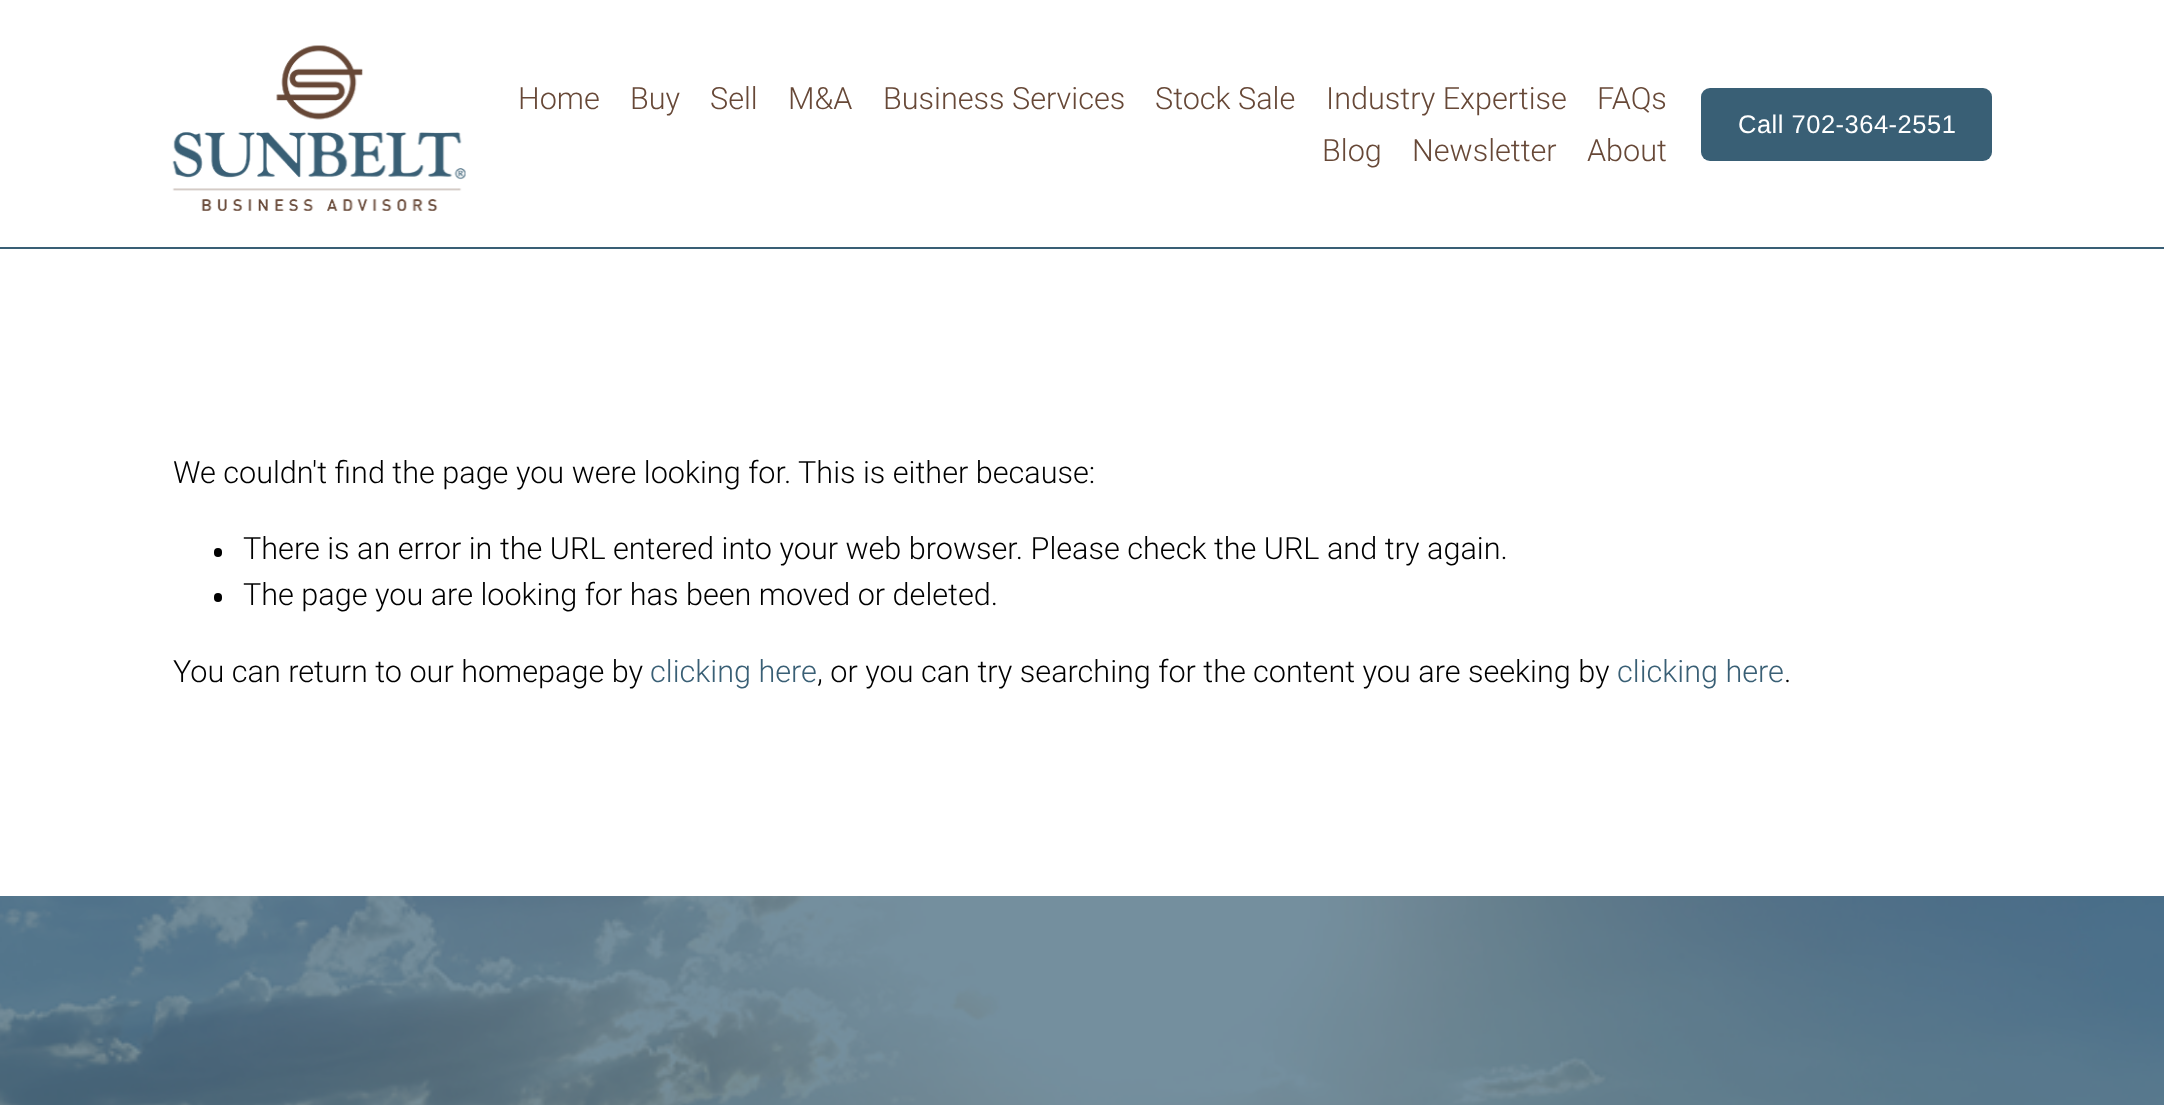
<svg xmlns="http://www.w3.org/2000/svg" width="2164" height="1105">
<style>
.a{font:300 30.6px Roboto;fill:#674837}
.b{font:25.5px Liberation Sans;letter-spacing:0.5px;fill:#fff}
.c{font:300 30.6px Roboto;fill:#000}
.d{font:300 30.6px Roboto;fill:#395f75}
</style>
<rect width="100%" height="100%" fill="#fff"/>
<image href="1.png" x="172" y="45" width="294" height="166"/>
<rect fill="#395f75" x="1701" y="88" width="291" height="73" rx="9"/>
<path fill="#395f75" d="M0 247h2164v2H0z"/>
<rect fill="#000" x="214" y="548" width="8" height="9" rx="4"/>
<rect fill="#000" x="214" y="593" width="8" height="9" rx="4"/>
<image href="2.png" x="0" y="896" width="2164" height="209"/>
<text class="a" x="518" y="109">Home</text>
<text class="a" x="630" y="109">Buy</text>
<text class="a" x="710" y="109">Sell</text>
<text class="a" x="788" y="109">M&amp;A</text>
<text class="a" x="883" y="109">Business Services</text>
<text class="a" x="1155" y="109">Stock Sale</text>
<text class="a" x="1326" y="109">Industry Expertise</text>
<text class="a" x="1597" y="109">FAQs</text>
<text class="a" x="1322" y="161">Blog</text>
<text class="a" x="1412" y="161">Newsletter</text>
<text class="a" x="1587" y="161">About</text>
<text class="b" x="1738" y="133">Call 702-364-2551</text>
<text class="c" x="173" y="483">We couldn't find the page you were looking for. This is either because:</text>
<text class="c" x="243" y="559">There is an error in the URL entered into your web browser. Please check the URL and try again.</text>
<text class="c" x="243" y="605">The page you are looking for has been moved or deleted.</text>
<text class="c" x="173" y="682">You can return to our homepage by</text>
<text class="d" x="650" y="682">clicking here</text>
<text class="c" x="817" y="682">, or you can try searching for the</text>
<text class="c" x="1253" y="682">content you are seeking by</text>
<text class="d" x="1617" y="682">clicking here</text>
<text class="c" x="1784" y="682">.</text>
</svg>
